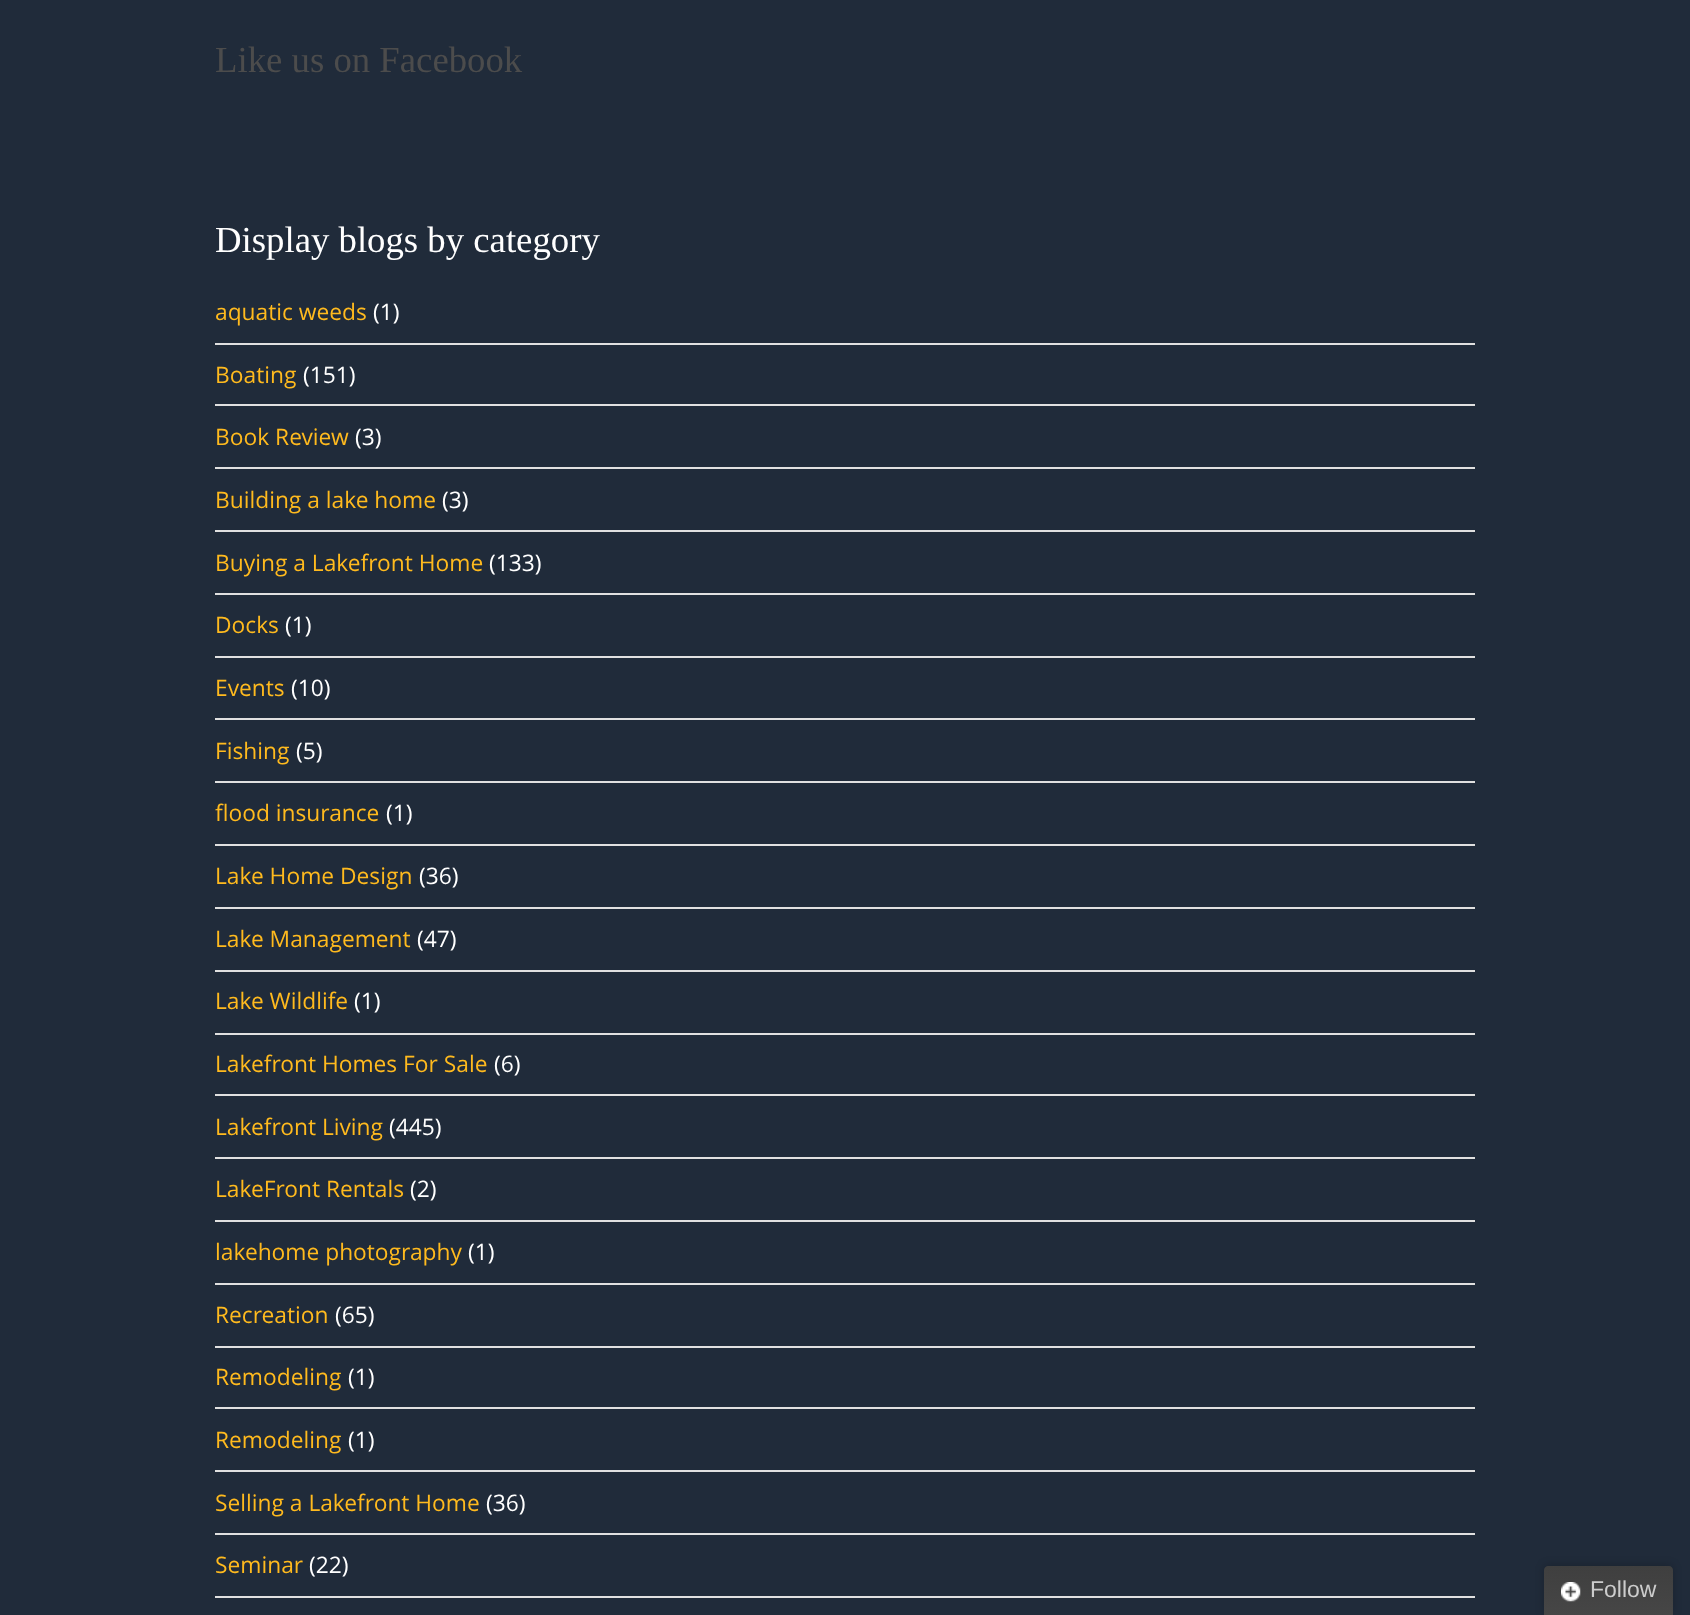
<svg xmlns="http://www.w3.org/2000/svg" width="1690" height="1615">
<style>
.a{font:36.75px Liberation Serif;fill:#4c4c4c}
.b{font:36.75px Liberation Serif;fill:#fff}
.c{font:22.75px Open Sans;fill:#ffba1e}
.d{font:22.75px Open Sans;fill:#fff}
.e{font:23px Liberation Sans;fill:#ccc}
</style>
<defs>
<linearGradient id="g1" gradientUnits="userSpaceOnUse" x1="1544" y1="1566" x2="1544" y2="1615"><stop offset="0" stop-color="#3f3f3f"/><stop offset="1" stop-color="#464646"/></linearGradient>
</defs>
<rect width="100%" height="100%" fill="#202b3a"/>
<path fill="#e0e0e0" d="M215 343h1260v2H215z"/>
<path fill="#e0e0e0" d="M215 404h1260v2H215z"/>
<path fill="#e0e0e0" d="M215 467h1260v2H215z"/>
<path fill="#e0e0e0" d="M215 530h1260v2H215z"/>
<path fill="#e0e0e0" d="M215 593h1260v2H215z"/>
<path fill="#e0e0e0" d="M215 656h1260v2H215z"/>
<path fill="#e0e0e0" d="M215 718h1260v2H215z"/>
<path fill="#e0e0e0" d="M215 781h1260v2H215z"/>
<path fill="#e0e0e0" d="M215 844h1260v2H215z"/>
<path fill="#e0e0e0" d="M215 907h1260v2H215z"/>
<path fill="#e0e0e0" d="M215 970h1260v2H215z"/>
<path fill="#e0e0e0" d="M215 1033h1260v2H215z"/>
<path fill="#e0e0e0" d="M215 1094h1260v2H215z"/>
<path fill="#e0e0e0" d="M215 1157h1260v2H215z"/>
<path fill="#e0e0e0" d="M215 1220h1260v2H215z"/>
<path fill="#e0e0e0" d="M215 1283h1260v2H215z"/>
<path fill="#e0e0e0" d="M215 1346h1260v2H215z"/>
<path fill="#e0e0e0" d="M215 1407h1260v2H215z"/>
<path fill="#e0e0e0" d="M215 1470h1260v2H215z"/>
<path fill="#e0e0e0" d="M215 1533h1260v2H215z"/>
<path fill="#e0e0e0" d="M215 1596h1260v2H215z"/>
<rect fill="#00000033" filter="blur(4.5px)" x="1544" y="1565" width="129" height="49" rx="4"/>
<path fill="url(#g1)" d="M1548 1566h121c2 0 4 2 4 4v45h-129v-45c0-2 2-4 4-4z"/>
<image href="1.png" x="1561" y="1582" width="20" height="20"/>
<text class="a" x="215" y="72">Like us on Facebook</text>
<text class="b" x="215" y="252">Display blogs by category</text>
<text class="c" x="215" y="320">aquatic weeds</text>
<text class="d" x="373" y="320">(1)</text>
<text class="c" x="215" y="383">Boating</text>
<text class="d" x="303" y="383">(151)</text>
<text class="c" x="215" y="445">Book Review</text>
<text class="d" x="355" y="445">(3)</text>
<text class="c" x="215" y="508">Building a lake home</text>
<text class="d" x="442" y="508">(3)</text>
<text class="c" x="215" y="571">Buying a Lakefront Home</text>
<text class="d" x="489" y="571">(133)</text>
<text class="c" x="215" y="633">Docks</text>
<text class="d" x="285" y="633">(1)</text>
<text class="c" x="215" y="696">Events</text>
<text class="d" x="291" y="696">(10)</text>
<text class="c" x="215" y="759">Fishing</text>
<text class="d" x="296" y="759">(5)</text>
<text class="c" x="215" y="821">flood insurance</text>
<text class="d" x="386" y="821">(1)</text>
<text class="c" x="215" y="884">Lake Home Design</text>
<text class="d" x="419" y="884">(36)</text>
<text class="c" x="215" y="947">Lake Management</text>
<text class="d" x="417" y="947">(47)</text>
<text class="c" x="215" y="1009">Lake Wildlife</text>
<text class="d" x="354" y="1009">(1)</text>
<text class="c" x="215" y="1072">Lakefront Homes For Sale</text>
<text class="d" x="494" y="1072">(6)</text>
<text class="c" x="215" y="1135">Lakefront Living</text>
<text class="d" x="389" y="1135">(445)</text>
<text class="c" x="215" y="1197">LakeFront Rentals</text>
<text class="d" x="410" y="1197">(2)</text>
<text class="c" x="215" y="1260">lakehome photography</text>
<text class="d" x="468" y="1260">(1)</text>
<text class="c" x="215" y="1323">Recreation</text>
<text class="d" x="335" y="1323">(65)</text>
<text class="c" x="215" y="1385">Remodeling</text>
<text class="d" x="348" y="1385">(1)</text>
<text class="c" x="215" y="1448">Remodeling</text>
<text class="d" x="348" y="1448">(1)</text>
<text class="c" x="215" y="1511">Selling a Lakefront Home</text>
<text class="d" x="486" y="1511">(36)</text>
<text class="c" x="215" y="1573">Seminar</text>
<text class="d" x="309" y="1573">(22)</text>
<text class="e" x="1590" y="1597">Follow</text>
</svg>
